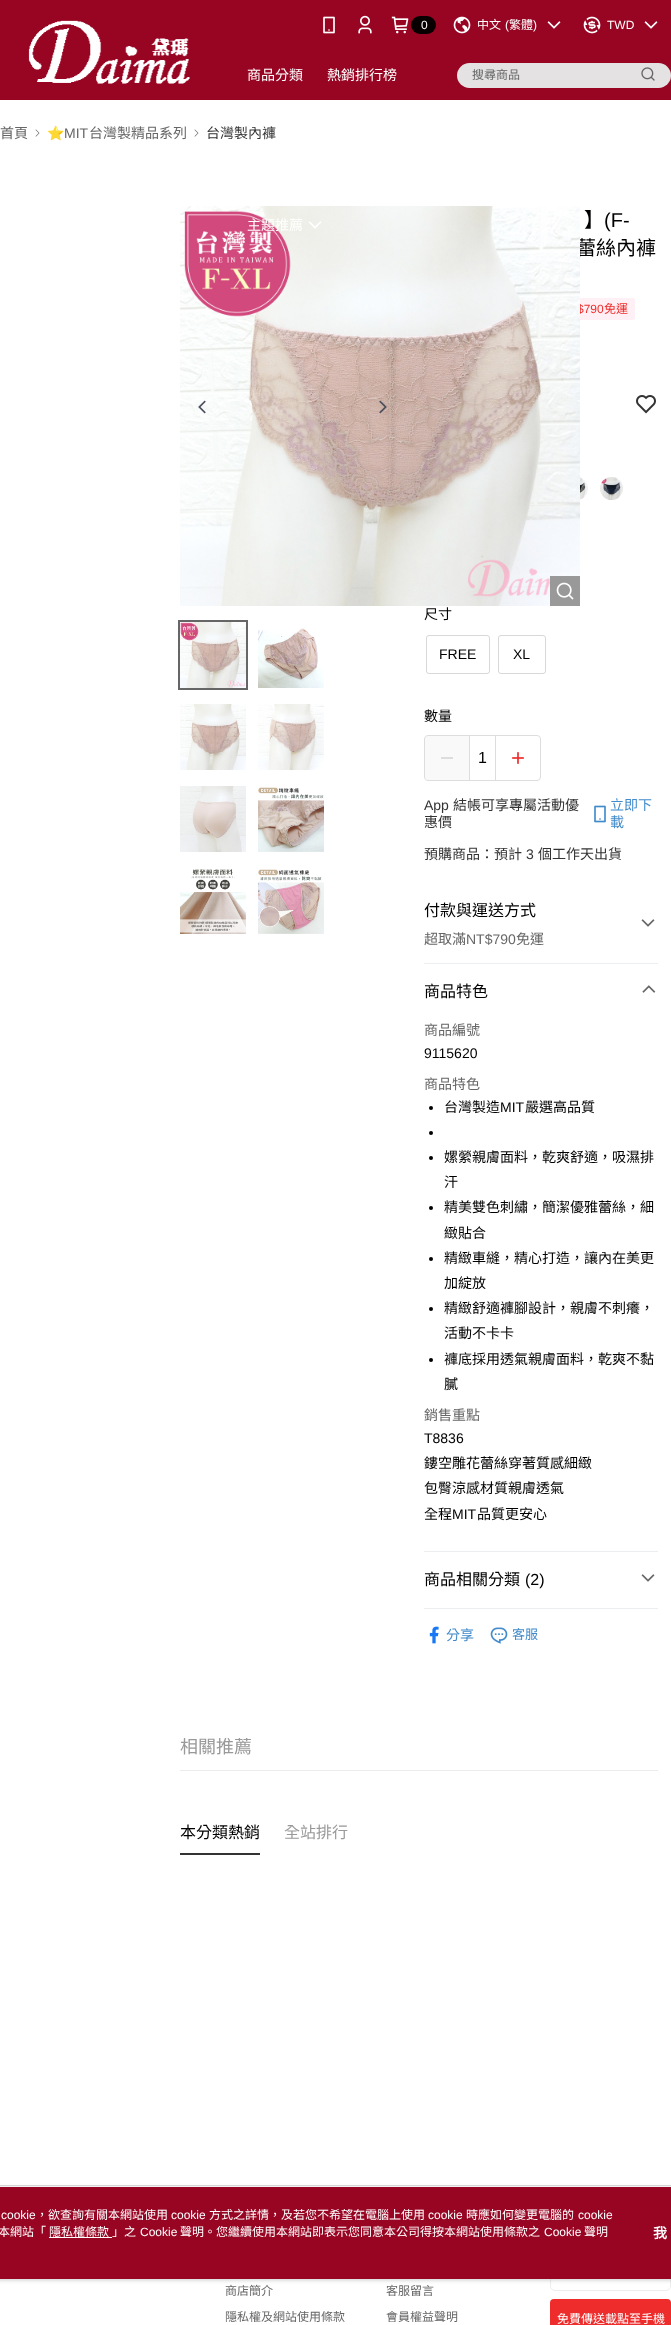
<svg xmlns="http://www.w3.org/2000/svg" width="671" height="2325">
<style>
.a{font:12px Liberation Sans;fill:#fff}
.b{font:12px Noto Sans CJK TC;fill:#fff}
.c{font:14px Noto Sans CJK TC;fill:#fff}
.d{font:12px Noto Sans CJK TC;fill:#666}
.e{font:14px Noto Sans CJK TC;fill:#666}
.f{font:14px Noto Color Emoji;fill:#666}
.g{font:14px Liberation Sans;fill:#666}
.h{font:14px Noto Sans CJK TC;fill:#333}
.i{font:20px Noto Sans CJK TC;fill:#000}
.j{font:20px Liberation Sans;fill:#000}
.k{font:12px Liberation Sans;fill:#ee2c2c}
.l{font:12px Noto Sans CJK TC;fill:#ee2c2c}
.m{font:14px Noto Sans CJK TC;fill:#000}
.n{font:14px Liberation Sans;fill:#000}
.o{font:16px Liberation Sans;fill:#000}
.p{font:14px Liberation Sans;fill:#333}
.q{font:14px Noto Sans CJK TC;fill:#428bca}
.r{font:16px Noto Sans CJK TC;fill:#000}
.s{font:13px Noto Sans CJK TC;fill:#428bca}
.t{font:18px Noto Sans CJK TC;fill:#999}
.u{font:16px Noto Sans CJK TC;fill:#999}
.v{font:bold 14px Noto Sans CJK TC;fill:#fff}
</style>
<rect width="100%" height="100%" fill="#fff"/>
<path fill="#980523" d="M0 0h671v100H0z"/>
<image href="1.png" x="28" y="20" width="162" height="64"/>
<image href="2.png" x="323" y="16" width="12" height="18"/>
<image href="3.png" x="358" y="15" width="14" height="19"/>
<image href="4.png" x="391" y="16" width="18" height="18"/>
<rect fill="#080000" x="411" y="16" width="25" height="18" rx="9"/>
<image href="5.png" x="453" y="16" width="18" height="18"/>
<image href="6.png" x="547" y="21" width="14" height="8"/>
<image href="7.png" x="583" y="16" width="18" height="18"/>
<image href="6.png" x="644" y="21" width="14" height="8"/>
<rect fill="#e4e2e2" x="457" y="63" width="214" height="25" rx="12.5"/>
<image href="9.png" x="641" y="67" width="14" height="14"/>
<image href="10.png" x="35" y="129" width="5" height="8"/>
<image href="10.png" x="194" y="129" width="5" height="8"/>
<image href="15.png" x="180" y="622" width="66" height="66"/>
<path fill="none" stroke="#666" stroke-width="2" d="M179 621h68v68H179z"/>
<image href="16.png" x="258" y="628" width="66" height="60"/>
<image href="17.png" x="180" y="704" width="66" height="66"/>
<image href="18.png" x="258" y="704" width="66" height="66"/>
<image href="19.png" x="180" y="786" width="66" height="66"/>
<image href="20.png" x="258" y="787" width="66" height="65"/>
<image href="21.png" x="180" y="869" width="66" height="65"/>
<image href="22.png" x="258" y="869" width="66" height="65"/>
<rect fill="#fff0f5" stroke="#fff0f5" x="518.5" y="298.5" width="116" height="21" rx="1.5"/>
<image href="23.png" x="636" y="395" width="20" height="19"/>
<image href="24.png" x="580" y="477" width="8" height="23"/>
<image href="25.png" x="600" y="477" width="23" height="23"/>
<rect fill="#f1f1f1" stroke="#d8d8d8" x="426.5" y="635.5" width="63" height="38" rx="2.5"/>
<rect fill="#fff" x="427" y="636" width="62" height="37" rx="3"/>
<rect fill="#f1f1f1" stroke="#d8d8d8" x="498.5" y="635.5" width="47" height="38" rx="2.5"/>
<rect fill="#fff" x="499" y="636" width="46" height="37" rx="3"/>
<rect fill="none" stroke="#ddd" x="424.5" y="735.5" width="116" height="45" rx="3.5"/>
<path fill="#f1f1f166" d="M425 736h44v44H425z"/>
<path fill="#ddd" d="M441 757h12v2H441z"/>
<path fill="#ddd" d="M495 736h1v44H495z"/>
<path fill="#ddd" d="M469 736h1v44H469z"/>
<image href="26.png" x="512" y="752" width="12" height="12"/>
<image href="27.png" x="594" y="805" width="12" height="18"/>
<path fill="#eceff1" d="M424 963h234v1H424z"/>
<image href="28.png" x="641" y="919" width="14" height="8"/>
<path fill="#eceff1" d="M424 1551h234v1H424z"/>
<image href="29.png" x="642" y="985" width="14" height="8"/>
<circle fill="#000" cx="431" cy="1108" r="2"/>
<circle fill="#000" cx="431" cy="1133" r="2"/>
<circle fill="#000" cx="431" cy="1158" r="2"/>
<circle fill="#000" cx="431" cy="1208" r="2"/>
<circle fill="#000" cx="431" cy="1259" r="2"/>
<circle fill="#000" cx="431" cy="1309" r="2"/>
<circle fill="#000" cx="431" cy="1360" r="2"/>
<path fill="#eceff1" d="M424 1608h234v1H424z"/>
<image href="28.png" x="641" y="1574" width="14" height="8"/>
<image href="30.png" x="429" y="1626" width="10" height="18"/>
<image href="31.png" x="490" y="1627" width="18" height="17"/>
<path fill="#ececec" d="M180 1770h478v1H180z"/>
<path fill="#333" d="M180 1853h80v2H180z"/>
<path fill="#dadada" d="M0 2185h671v1H0z"/>
<rect fill="none" stroke="#ededed" x="550.5" y="2251.5" width="120" height="39" rx="4.5"/>
<rect fill="#ee2c2c" x="550" y="2299" width="121" height="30" rx="4"/>
<rect fill="#97979780" filter="blur(2px)" x="-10" y="2188" width="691" height="92" rx="4"/>
<path fill="#980523" d="M0 2187h671v92H0z"/>
<path fill="#fff" d="M49 2237h63v1H49z"/>
<text class="a" x="421" y="29">0</text>
<text class="b" x="477" y="29">中文</text>
<text class="a" x="505" y="29">(</text>
<text class="b" x="509" y="29">繁體</text>
<text class="a" x="533" y="29">)</text>
<text class="a" x="607" y="29">TWD</text>
<text class="c" x="247" y="80">商品分類</text>
<text class="c" x="327" y="80">熱銷排行榜</text>
<text class="d" x="472" y="79">搜尋商品</text>
<text class="e" x="0" y="138">首頁</text>
<text class="f" x="47" y="138">⭐</text>
<text class="g" x="64" y="138">MIT</text>
<text class="e" x="89" y="138">台灣製精品系列</text>
<text class="h" x="206" y="138">台灣製內褲</text>
<text class="i" x="584" y="227">】</text>
<text class="j" x="604" y="227">(F-</text>
<text class="i" x="576" y="255">蕾絲內褲</text>
<text class="k" x="577" y="313">$790</text>
<image href="11.png" x="180" y="206" width="400" height="400"/>
<image href="8.png" x="308" y="221" width="14" height="8"/>
<text class="c" x="247" y="230">主題推薦</text>
<image href="14.png" x="379" y="400" width="8" height="14"/>
<path fill="#999" d="M550 576h30v30H550z"/>
<image href="12.png" x="556" y="582" width="18" height="18"/>
<image href="13.png" x="198" y="400" width="8" height="14"/>
<text class="l" x="604" y="313">免運</text>
<text class="m" x="424" y="619">尺寸</text>
<text class="n" x="439" y="659">FREE</text>
<text class="n" x="513" y="659">XL</text>
<text class="m" x="424" y="721">數量</text>
<text class="o" x="478" y="763">1</text>
<text class="p" x="424" y="810">App</text>
<text class="h" x="453" y="810">結帳可享專屬活動優</text>
<text class="q" x="610" y="810">立即下</text>
<text class="q" x="610" y="827">載</text>
<text class="h" x="424" y="827">惠價</text>
<text class="h" x="424" y="859">預購商品：預計</text>
<text class="p" x="526" y="859">3</text>
<text class="h" x="538" y="859">個工作天出貨</text>
<text class="r" x="424" y="916">付款與運送方式</text>
<text class="e" x="424" y="944">超取滿</text>
<text class="g" x="466" y="944">NT$790</text>
<text class="e" x="516" y="944">免運</text>
<text class="r" x="424" y="997">商品特色</text>
<text class="e" x="424" y="1035">商品編號</text>
<text class="n" x="424" y="1058">9115620</text>
<text class="e" x="424" y="1089">商品特色</text>
<text class="m" x="444" y="1112">台灣製造</text>
<text class="n" x="500" y="1112">MIT</text>
<text class="m" x="525" y="1112">嚴選高品質</text>
<text class="m" x="444" y="1162">嫘縈親膚面料，乾爽舒適，吸濕排</text>
<text class="m" x="444" y="1187">汗</text>
<text class="m" x="444" y="1212">精美雙色刺繡，簡潔優雅蕾絲，細</text>
<text class="m" x="444" y="1238">緻貼合</text>
<text class="m" x="444" y="1263">精緻車縫，精心打造，讓內在美更</text>
<text class="m" x="444" y="1288">加綻放</text>
<text class="m" x="444" y="1313">精緻舒適褲腳設計，親膚不刺癢，</text>
<text class="m" x="444" y="1338">活動不卡卡</text>
<text class="m" x="444" y="1364">褲底採用透氣親膚面料，乾爽不黏</text>
<text class="m" x="444" y="1389">膩</text>
<text class="e" x="424" y="1420">銷售重點</text>
<text class="n" x="424" y="1443">T8836</text>
<text class="m" x="424" y="1468">鏤空雕花蕾絲穿著質感細緻</text>
<text class="m" x="424" y="1493">包臀涼感材質親膚透氣</text>
<text class="m" x="424" y="1519">全程</text>
<text class="n" x="452" y="1519">MIT</text>
<text class="m" x="477" y="1519">品質更安心</text>
<text class="r" x="424" y="1585">商品相關分類</text>
<text class="o" x="525" y="1585">(2)</text>
<text class="q" x="446" y="1640">分享</text>
<text class="s" x="512" y="1639">客服</text>
<text class="t" x="180" y="1753">相關推薦</text>
<text class="r" x="180" y="1838">本分類熱銷</text>
<text class="u" x="284" y="1838">全站排行</text>
<text class="d" x="225" y="2295">商店簡介</text>
<text class="d" x="225" y="2321">隱私權及網站使用條款</text>
<text class="d" x="386" y="2295">客服留言</text>
<text class="d" x="386" y="2321">會員權益聲明</text>
<text class="b" x="557" y="2323">免費傳送載點至手機</text>
<text class="a" x="1" y="2219">cookie</text>
<text class="b" x="36" y="2219">，欲查詢有關本網站使用</text>
<text class="a" x="171" y="2219">cookie</text>
<text class="b" x="209" y="2219">方式之詳情，及若您不希望在電腦上使用</text>
<text class="a" x="428" y="2219">cookie</text>
<text class="b" x="466" y="2219">時應如何變更電腦的</text>
<text class="a" x="578" y="2219">cookie</text>
<text class="b" x="-2" y="2236">本網站「</text>
<text class="b" x="49" y="2236">隱私權條款</text>
<text class="b" x="112" y="2236">」之</text>
<text class="a" x="140" y="2236">Cookie</text>
<text class="b" x="180" y="2236">聲明。您繼續使用本網站即表示您同意本公司得按本網站使用條款之</text>
<text class="a" x="544" y="2236">Cookie</text>
<text class="b" x="584" y="2236">聲明</text>
<text class="v" x="653" y="2238">我</text>
</svg>
